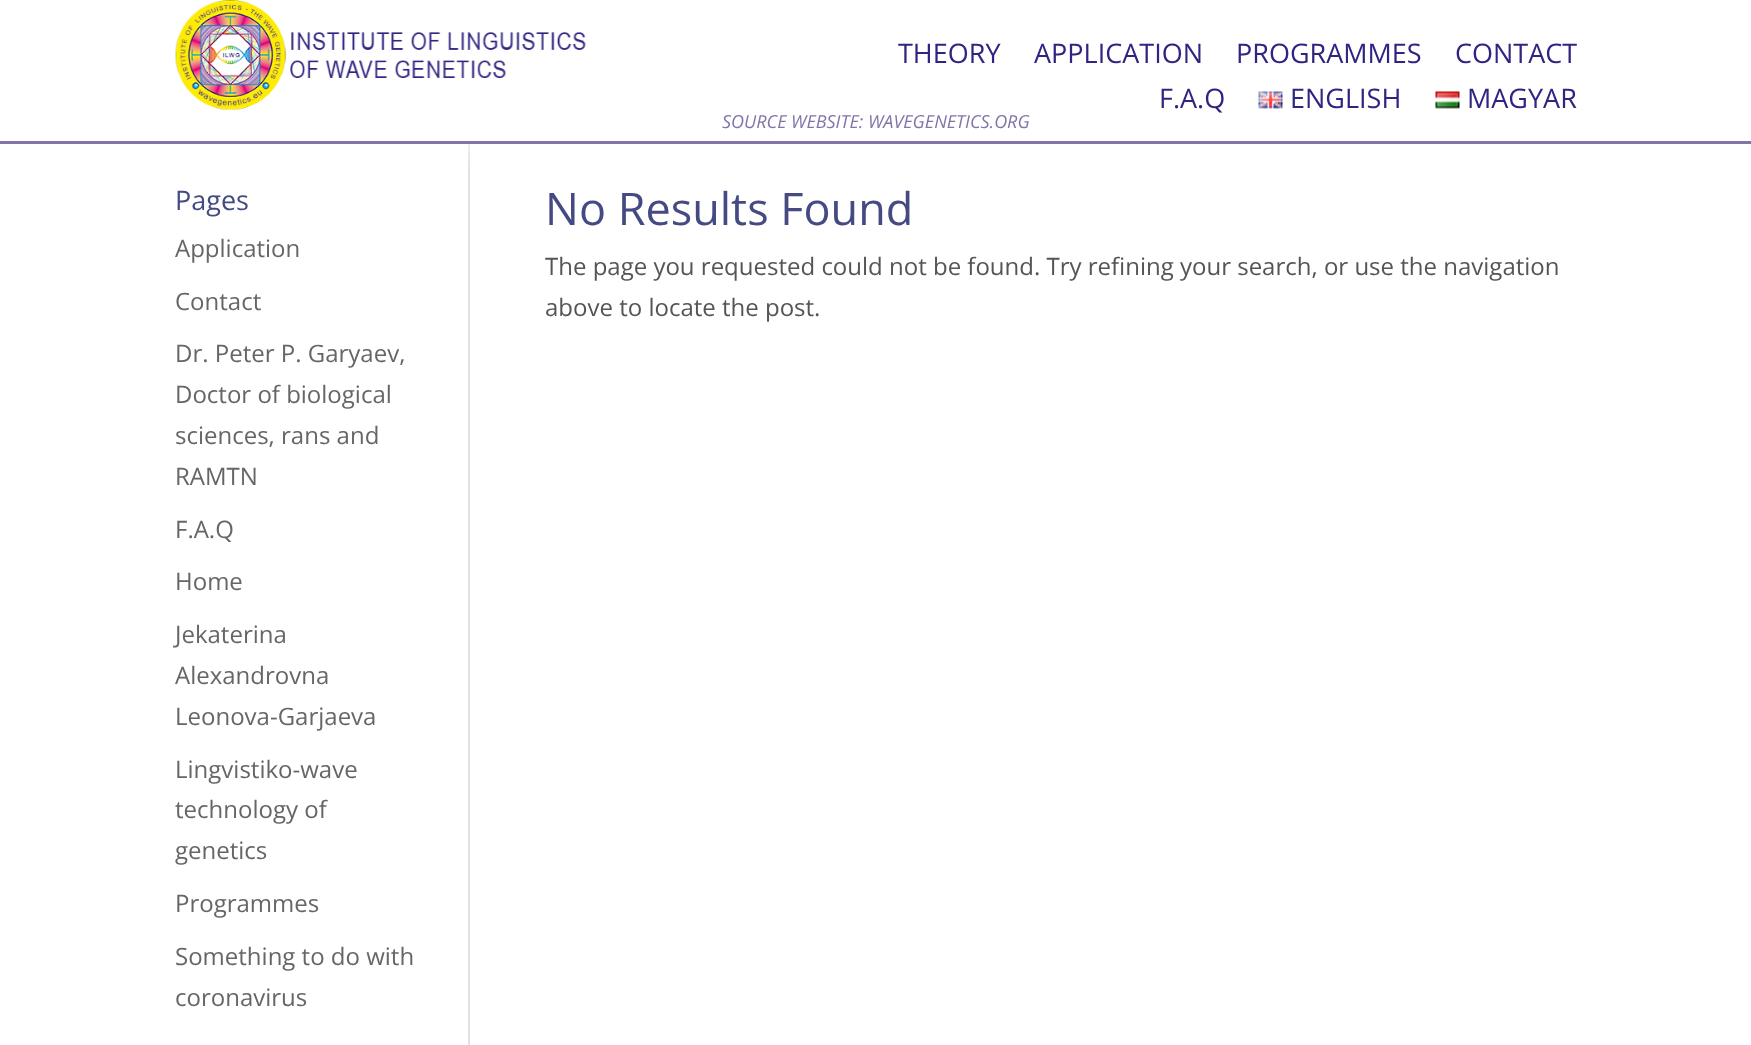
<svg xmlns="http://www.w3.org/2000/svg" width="1751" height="1045">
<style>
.a{font:27px Open Sans;fill:#2f2481}
.b{font:italic 18px Open Sans;fill:#8274a9}
.c{font:27px Open Sans;fill:#454b82}
.d{font:24px Open Sans;fill:#666}
.e{font:45px Open Sans;fill:#454b82}
.f{font:24px Open Sans;fill:#555}
</style>
<rect width="100%" height="100%" fill="#fff"/>
<path fill="#e2e2e2" d="M468 144h2v901H468z"/>
<path fill="#ffffff85" filter="blur(13.5px)" d="M9 27h1734v126H9z"/>
<path fill="#8274a9" d="M0 141h1751v3H0z"/>
<image href="1.png" x="175" y="0" width="411" height="110"/>
<image href="2.png" x="1258" y="91" width="25" height="18"/>
<image href="3.png" x="1435" y="91" width="25" height="18"/>
<text class="a" x="898" y="63">THEORY</text>
<text class="a" x="1034" y="63">APPLICATION</text>
<text class="a" x="1236" y="63">PROGRAMMES</text>
<text class="a" x="1455" y="63">CONTACT</text>
<text class="a" x="1159" y="108">F.A.Q</text>
<text class="a" x="1290" y="108">ENGLISH</text>
<text class="a" x="1467" y="108">MAGYAR</text>
<text class="b" x="722" y="128">SOURCE WEBSITE: WAVEGENETICS.ORG</text>
<text class="c" x="175" y="210">Pages</text>
<text class="d" x="175" y="257">Application</text>
<text class="d" x="175" y="310">Contact</text>
<text class="d" x="175" y="362">Dr. Peter P. Garyaev,</text>
<text class="d" x="175" y="403">Doctor of biological</text>
<text class="d" x="175" y="444">sciences, rans and</text>
<text class="d" x="175" y="485">RAMTN</text>
<text class="d" x="175" y="538">F.A.Q</text>
<text class="d" x="175" y="590">Home</text>
<text class="d" x="175" y="643">Jekaterina</text>
<text class="d" x="175" y="684">Alexandrovna</text>
<text class="d" x="175" y="725">Leonova-Garjaeva</text>
<text class="d" x="175" y="778">Lingvistiko-wave</text>
<text class="d" x="175" y="818">technology of</text>
<text class="d" x="175" y="859">genetics</text>
<text class="d" x="175" y="912">Programmes</text>
<text class="d" x="175" y="965">Something to do with</text>
<text class="d" x="175" y="1006">coronavirus</text>
<text class="e" x="545" y="225">No Results Found</text>
<text class="f" x="545" y="275">The page you requested could not be found. Try refining your search, or use the navigation</text>
<text class="f" x="545" y="316">above to locate the post.</text>
</svg>
